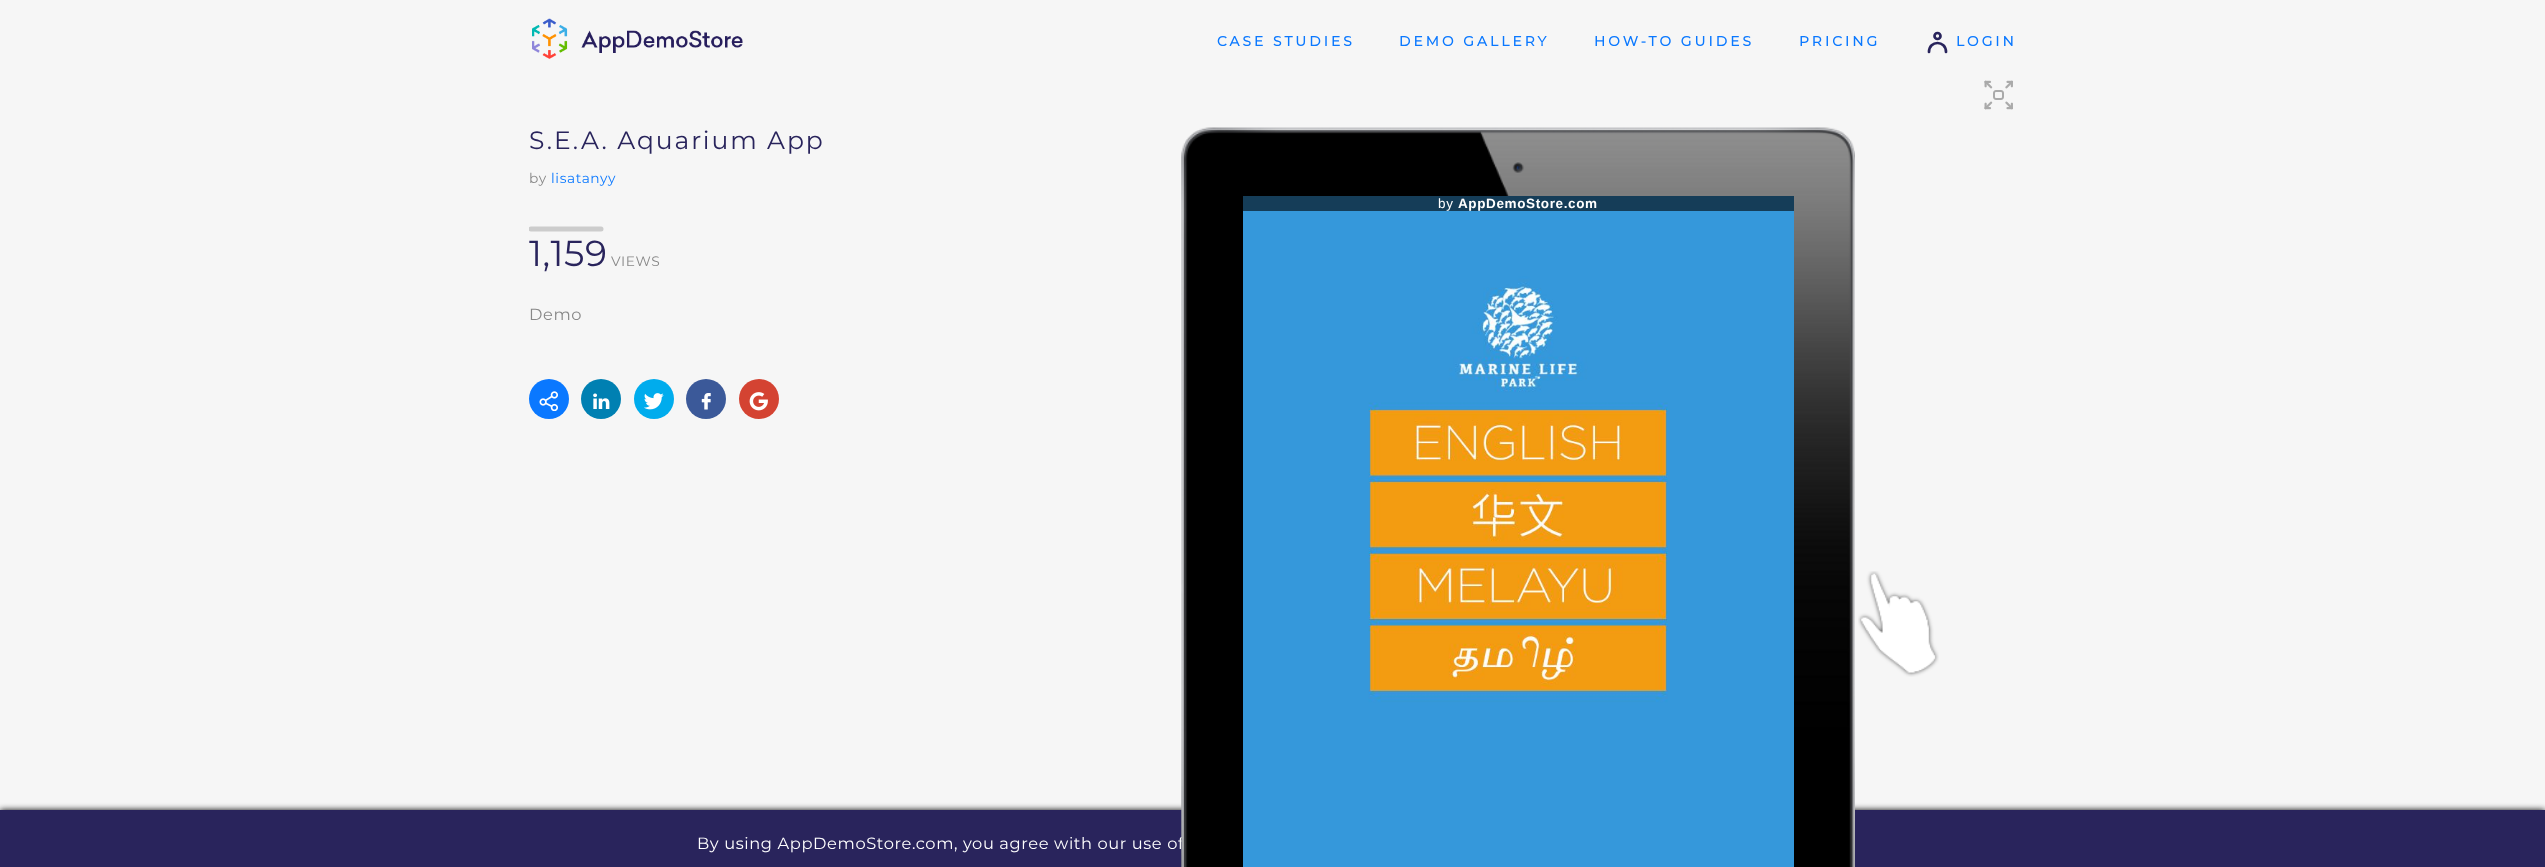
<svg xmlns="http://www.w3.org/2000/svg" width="2545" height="867">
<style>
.a{font:bold 13.75px Montserrat;letter-spacing:3.1px;fill:#0a78ff}
.b{font:100 25px Montserrat;letter-spacing:1.9px;fill:#29245c}
.c{font:100 13.75px Montserrat;letter-spacing:0.62px;fill:#888}
.d{font:100 13.75px Montserrat;letter-spacing:0.62px;fill:#0a78ff}
.e{font:100 36px Montserrat;letter-spacing:0.62px;fill:#29245c}
.f{font:100 16.25px Montserrat;letter-spacing:0.62px;fill:#888}
.g{font:100 16.25px Montserrat;letter-spacing:0.62px;fill:#fff}
.h{font:bold 13.5px Liberation Sans;letter-spacing:0.62px;fill:#fff}
.i{font:13.5px Liberation Sans;letter-spacing:0.62px;fill:#fff}
</style>
<defs>
<clipPath id="clip1"><path d="M529 216h75v25H529z"/></clipPath>
</defs>
<rect width="100%" height="100%" fill="#f6f6f6"/>
<image href="1.png" x="532" y="18" width="211" height="41"/>
<path fill="none" stroke="#29245c" stroke-width="2.7" stroke-linecap="round" d="M1929 52c0-12 17-12 17 0"/>
<circle fill="none" stroke="#29245c" stroke-width="2.7" cx="1937.5" cy="36" r="3"/>
<g clip-path="url(#clip1)">
<path fill="none" stroke="#ccc" stroke-width="5" stroke-linecap="round" d="M531 229h70"/>
</g>
<circle fill="#0a78ff" cx="549" cy="399" r="20"/>
<image href="2.png" x="539" y="391" width="19" height="20"/>
<circle fill="#0080b2" cx="601" cy="399" r="20"/>
<image href="3.png" x="593" y="393" width="17" height="16"/>
<circle fill="#00aced" cx="654" cy="399" r="20"/>
<image href="4.png" x="644" y="393" width="20" height="17"/>
<circle fill="#3b5999" cx="706" cy="399" r="20"/>
<image href="5.png" x="701" y="393" width="10" height="17"/>
<circle fill="#d44332" cx="759" cy="399" r="20"/>
<image href="6.png" x="749" y="392" width="19" height="19"/>
<image href="7.png" x="1984" y="80" width="29" height="30"/>
<image href="10.png" x="1858" y="571" width="81" height="106"/>
<path fill="#000" filter="blur(3px)" d="M0 810h2545v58H0z"/>
<path fill="#29245c" d="M0 810h2545v57H0z"/>
<text class="a" x="1217" y="46">CASE STUDIES</text>
<text class="a" x="1399" y="46">DEMO GALLERY</text>
<text class="a" x="1594" y="46">HOW-TO GUIDES</text>
<text class="a" x="1799" y="46">PRICING</text>
<text class="a" x="1956" y="46">LOGIN</text>
<text class="b" x="529" y="149">S.E.A. Aquarium App</text>
<text class="c" x="529" y="183">by</text>
<text class="d" x="551" y="183">lisatanyy</text>
<text class="e" x="529" y="266">1,159</text>
<text class="c" x="611" y="266">VIEWS</text>
<text class="f" x="529" y="320">Demo</text>
<text class="g" x="697" y="849">By using AppDemoStore.com, you agree with our use of</text>
<image href="8.png" x="1181" y="127" width="674" height="740"/>
<path fill="#153d58" d="M1243 196h551v15H1243z"/>
<text class="h" x="1458" y="208">AppDemoStore.com</text>
<text class="i" x="1438" y="208">by</text>
<image href="9.png" x="1243" y="211" width="551" height="656"/>
</svg>
